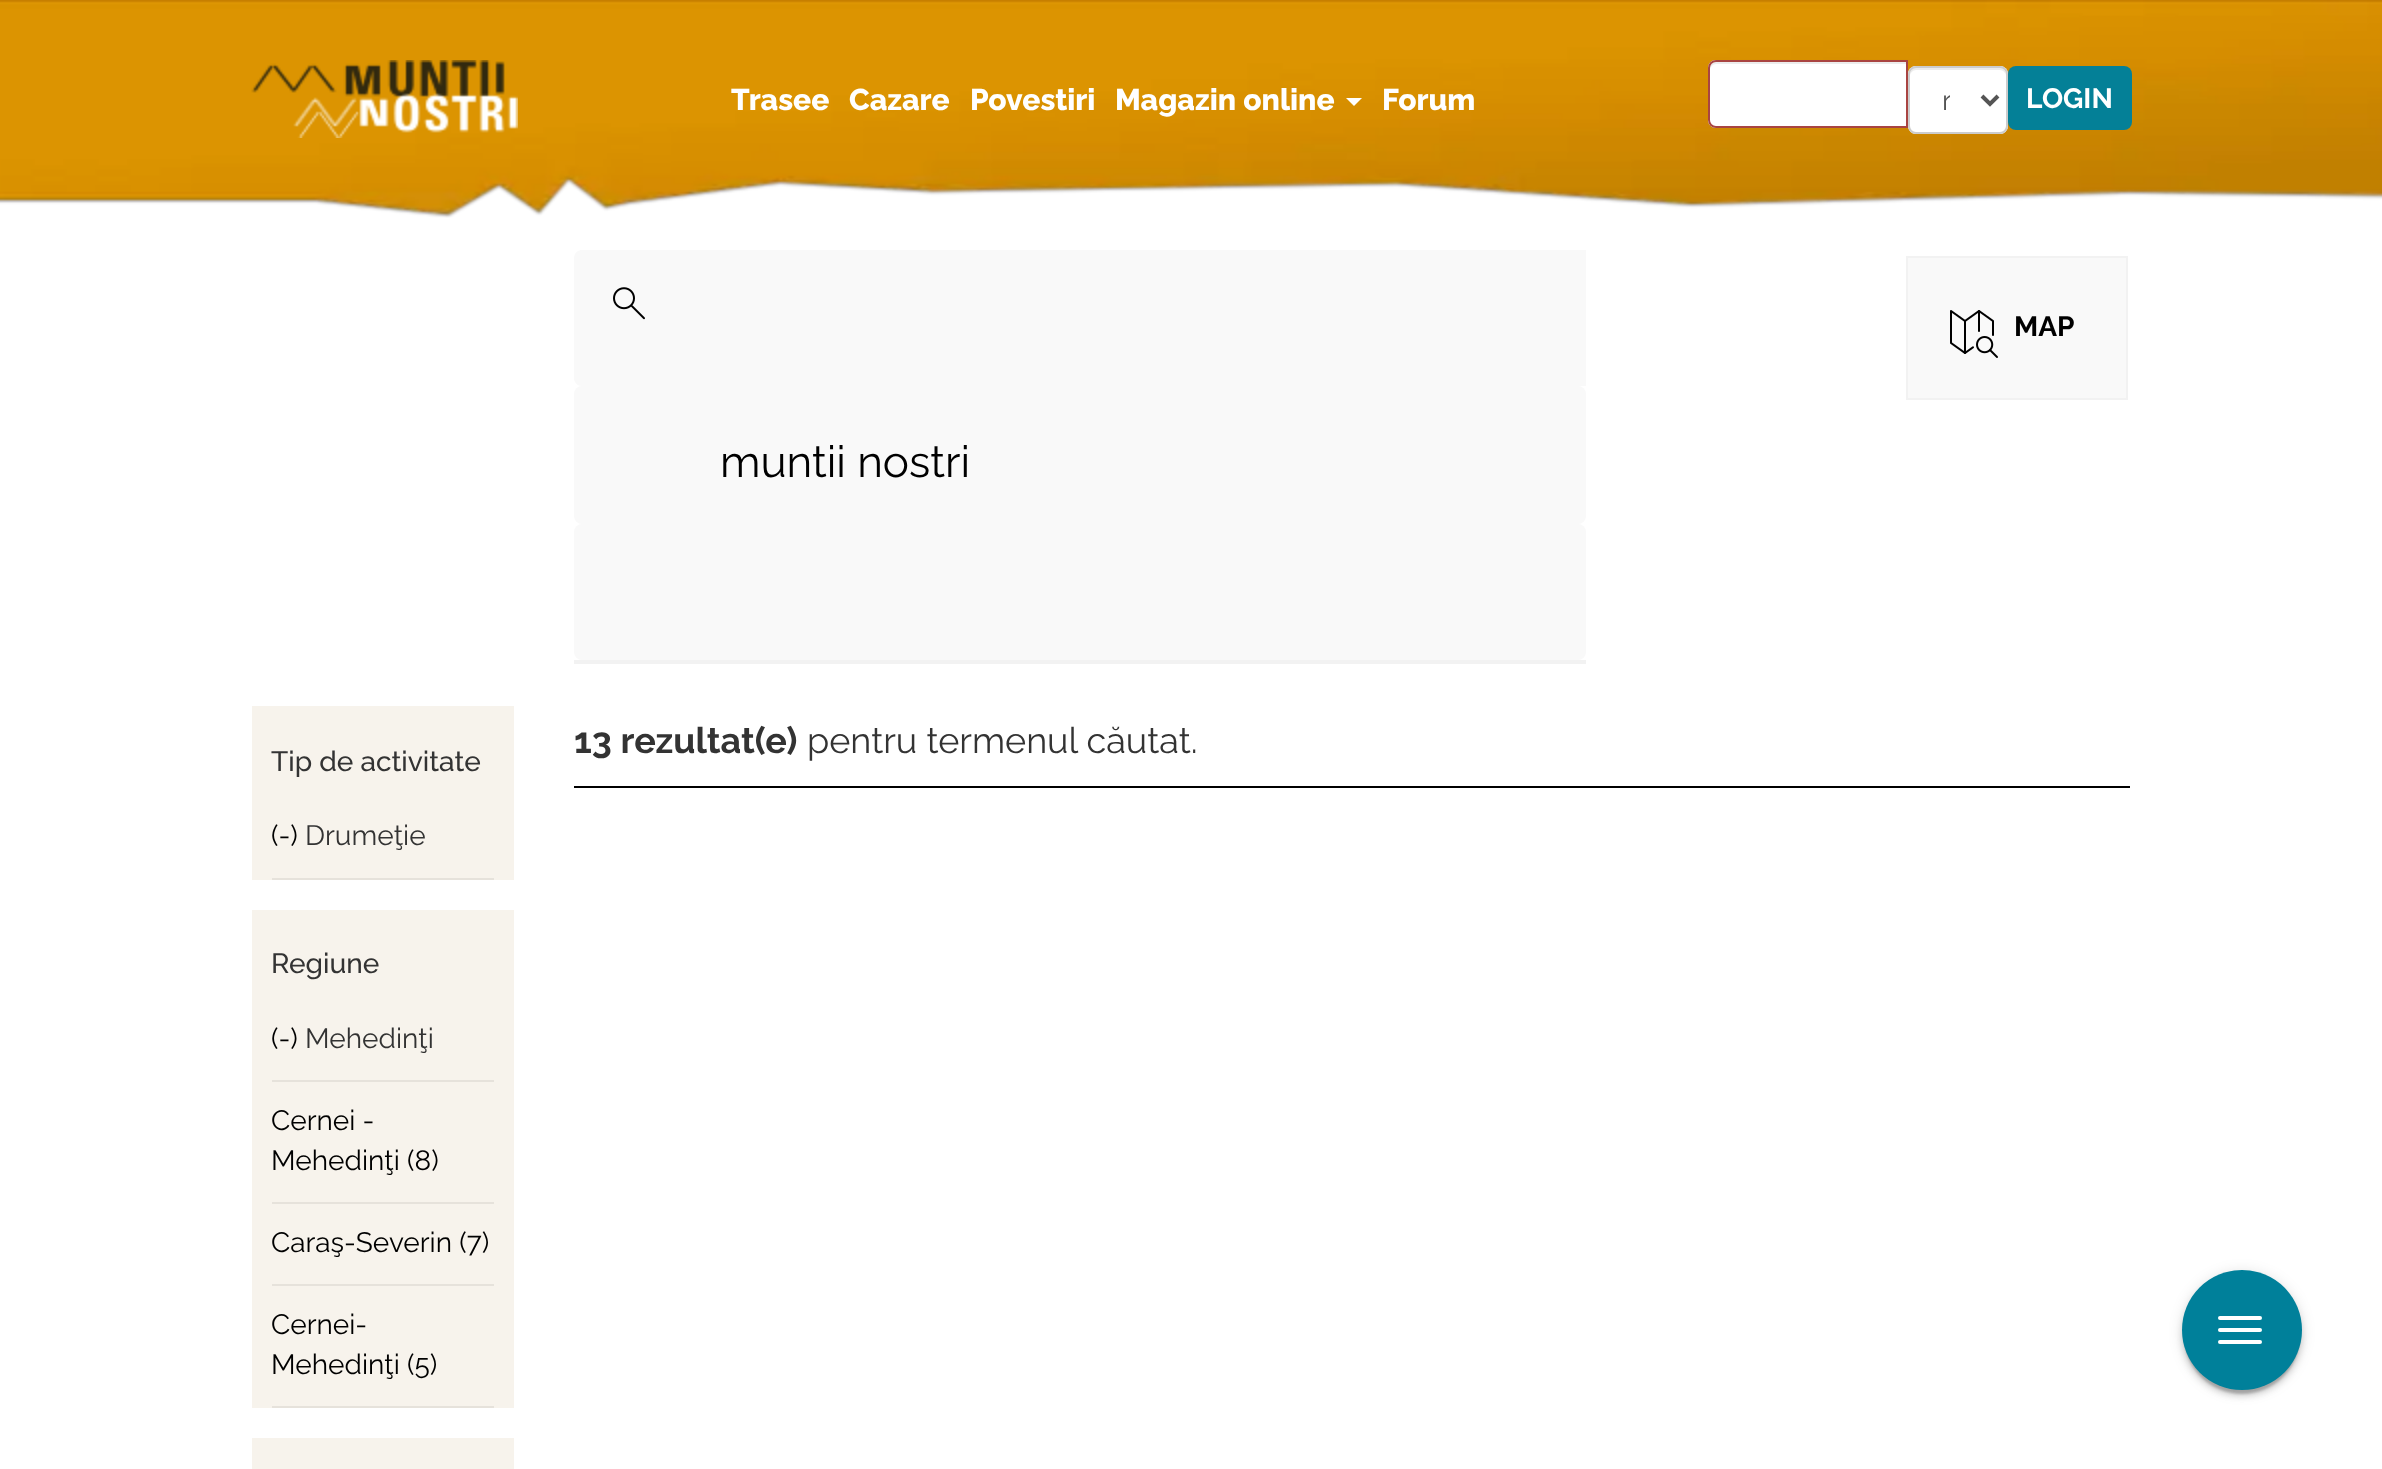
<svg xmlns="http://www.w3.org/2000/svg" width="2382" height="1469">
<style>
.a{font:800 30px Raleway;fill:#fff}
.b{font:28px Raleway;fill:#555}
.c{font:bold 28px Raleway;fill:#fff}
.d{font:bold 28px Raleway;fill:#000}
.e{font:44px Raleway;fill:#000}
.f{font:bold 36px Raleway;fill:#333}
.g{font:36px Raleway;fill:#333}
.h{font:500 28px Raleway;fill:#333}
.i{font:28px Raleway;fill:#000}
.j{font:28px Raleway;fill:#333}
</style>
<defs>
<clipPath id="clip1"><path d="M1942 82h8v36H1942z"/></clipPath>
</defs>
<rect width="100%" height="100%" fill="#fff"/>
<image href="1.png" x="0" y="0" width="2382" height="218"/>
<image href="2.png" x="251" y="60" width="267" height="78"/>
<path fill="#fff" d="M1346 98h16l-8 8z"/>
<path fill="#fff" d="M1716 60h192v68h-192c-4.5 0-8-3.5-8-8v-52c0-4.5 3.5-8 8-8z"/>
<path fill="#ececec" d="M1716 64h190v-2h-190c-3 0-6 3-6 6v2c0-3 3-6 6-6z"/>
<path fill="none" stroke="#a94442" stroke-width="2" d="M1716 61h191v66h-191c-4 0-7-3-7-7v-52c0-4 3-7 7-7z"/>
<rect fill="#fff" x="1908" y="66" width="100" height="68" rx="8"/>
<path fill="#ececec" d="M1916 70h84c3 0 6 3 6 6c0-12-11-8-20-8h-56c-9 0-20-4-20 8c0-3 3-6 6-6z"/>
<rect fill="none" stroke="#ccc" stroke-width="2" x="1909" y="67" width="98" height="66" rx="7"/>
<path fill="none" stroke="#555" stroke-width="4" d="M1982 96l8 8l8-8"/>
<rect fill="#00809afa" x="2008" y="66" width="124" height="64" rx="8"/>
<path fill="#f9f9f9" stroke="#f2f2f2" stroke-width="2" d="M1907 257h220v142H1907z"/>
<image href="3.png" x="1950" y="310" width="48" height="48"/>
<path fill="#f2f2f2" d="M574 660h1012v4H574z"/>
<path fill="#f9f9f9" d="M582 250h1004v136h-1004c-4.5 0-8-3.5-8-8v-120c0-4.5 3.5-8 8-8z"/>
<image href="4.png" x="613" y="287" width="32" height="33"/>
<rect fill="#f9f9f9" x="574" y="386" width="1012" height="138" rx="8"/>
<rect fill="#f9f9f9" x="574" y="524" width="1012" height="136" rx="8"/>
<path fill="#000" d="M574 786h1556v2H574z"/>
<path fill="#f7f3ec" d="M252 706h262v174H252z"/>
<path fill="#e6e2db" d="M272 878h222v2H272z"/>
<path fill="#f7f3ec" d="M252 910h262v498H252z"/>
<path fill="#e6e2db" d="M272 1080h222v2H272z"/>
<path fill="#e6e2db" d="M272 1202h222v2H272z"/>
<path fill="#e6e2db" d="M272 1284h222v2H272z"/>
<path fill="#e6e2db" d="M272 1406h222v2H272z"/>
<path fill="#f7f3ec" d="M252 1438h262v31H252z"/>
<rect fill="#00000033" filter="blur(1px)" x="2184" y="1278" width="116" height="116" rx="58"/>
<rect fill="#0000001f" filter="blur(7px)" x="2182" y="1272" width="120" height="120" rx="60"/>
<rect fill="#00000024" filter="blur(3px)" x="2182" y="1276" width="120" height="120" rx="60"/>
<circle fill="#00809a" cx="2242" cy="1330" r="60"/>
<rect fill="#fff" x="2218" y="1316" width="44" height="4" rx="2"/>
<rect fill="#fff" x="2218" y="1328" width="44" height="4" rx="2"/>
<rect fill="#fff" x="2218" y="1340" width="44" height="4" rx="2"/>
<text class="a" x="731" y="110">Trasee</text>
<text class="a" x="849" y="110">Cazare</text>
<text class="a" x="970" y="110">Povestiri</text>
<text class="a" x="1115" y="110">Magazin online</text>
<text class="a" x="1382" y="110">Forum</text>
<g clip-path="url(#clip1)">
<text class="b" x="1942" y="110">r</text>
</g>
<text class="c" x="2026" y="108">LOGIN</text>
<text class="d" x="2014" y="336">MAP</text>
<text class="e" x="720" y="477">muntii nostri</text>
<text class="f" x="574" y="753">13 rezultat(e)</text>
<text class="g" x="807" y="753">pentru termenul căutat.</text>
<text class="h" x="271" y="771">Tip de activitate</text>
<text class="i" x="271" y="845">(-)</text>
<text class="j" x="305" y="845">Drumeţie</text>
<text class="h" x="271" y="973">Regiune</text>
<text class="i" x="271" y="1048">(-)</text>
<text class="j" x="305" y="1048">Mehedinţi</text>
<text class="i" x="271" y="1130">Cernei -</text>
<text class="i" x="271" y="1170">Mehedinţi (8)</text>
<text class="i" x="271" y="1252">Caraş-Severin (7)</text>
<text class="i" x="271" y="1334">Cernei-</text>
<text class="i" x="271" y="1374">Mehedinţi (5)</text>
</svg>
